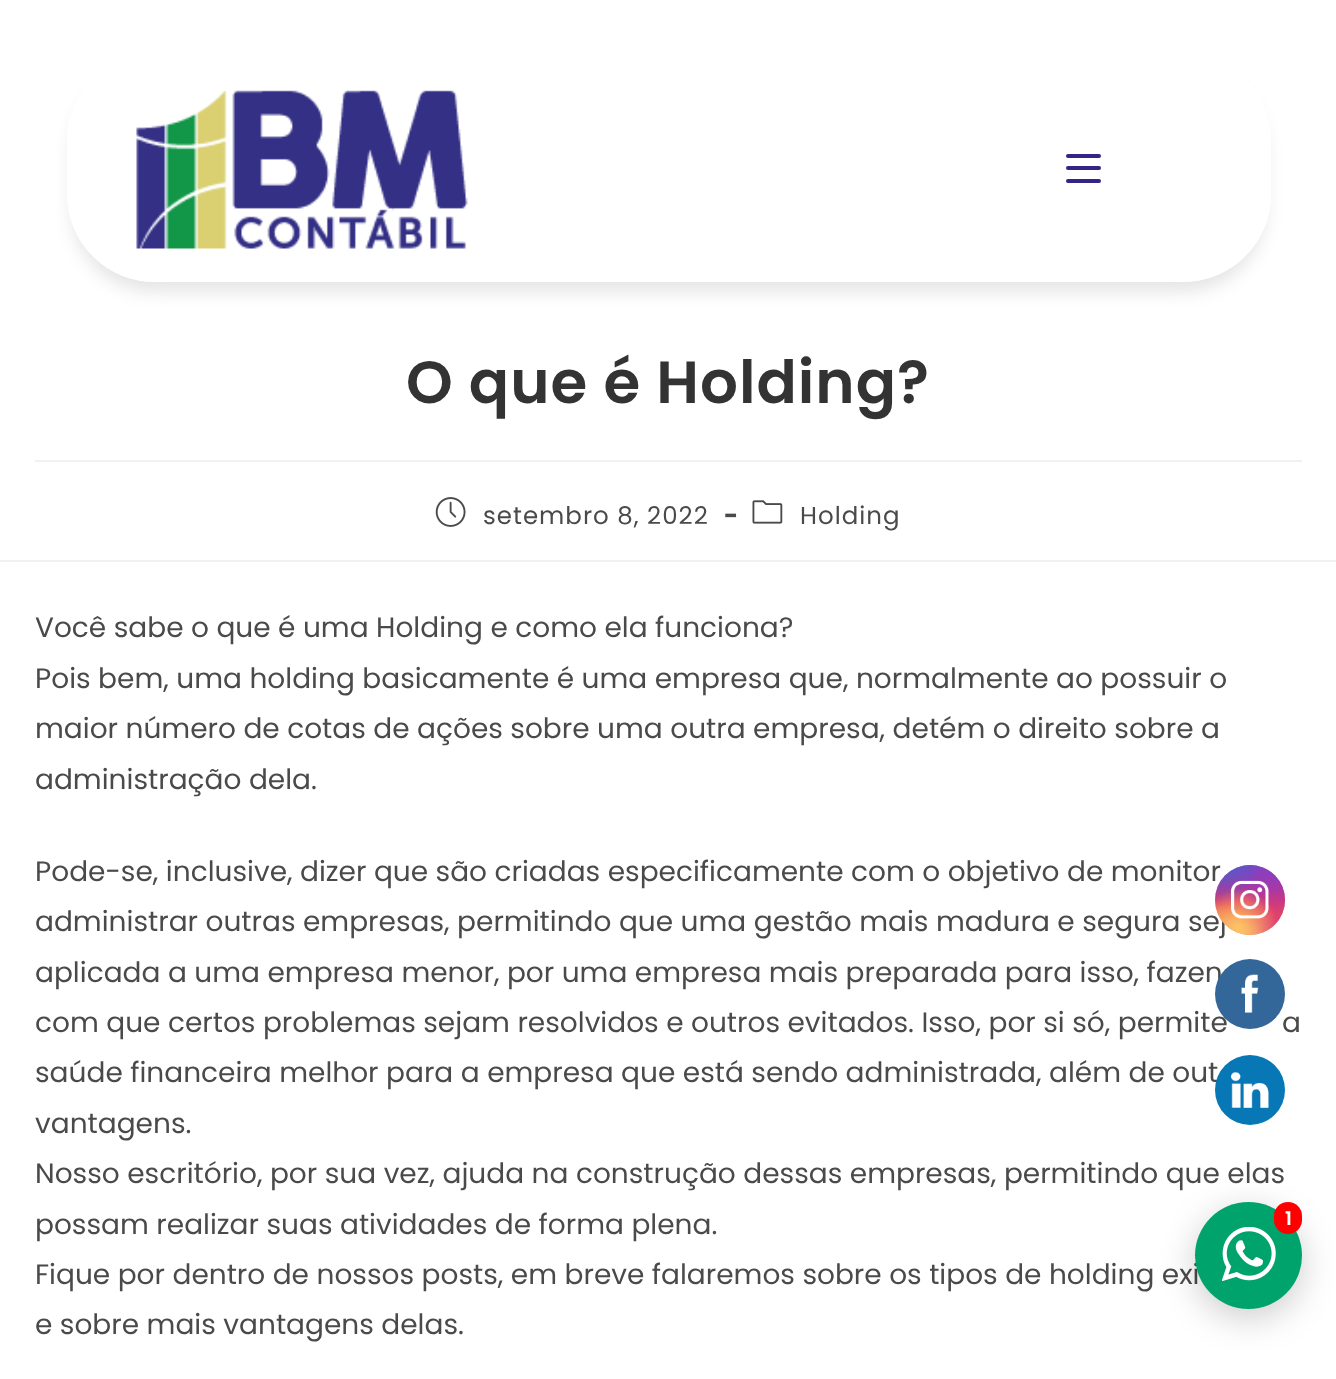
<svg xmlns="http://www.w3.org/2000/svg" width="1336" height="1379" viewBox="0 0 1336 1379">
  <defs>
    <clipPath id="clip1"><path d="M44 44H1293V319H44ZM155 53H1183C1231.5 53 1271 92.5 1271 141V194C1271 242.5 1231.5 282 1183 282H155C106.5 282 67 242.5 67 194V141C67 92.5 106.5 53 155 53Z" clip-rule="evenodd"/></clipPath>
    <filter id="blur1" x="-50%" y="-200%" width="200%" height="500%"><feGaussianBlur stdDeviation="9"/></filter>
    <linearGradient id="g1" gradientUnits="userSpaceOnUse" x1="1250" y1="865" x2="1250" y2="935"><stop offset="0" stop-color="#6559ca"/><stop offset="0.3" stop-color="#bc318f"/><stop offset="0.5" stop-color="#e33f5f"/><stop offset="0.7" stop-color="#f77638"/><stop offset="1" stop-color="#fec66d"/></linearGradient>
    <radialGradient id="g2" gradientUnits="userSpaceOnUse" cx="1285" cy="935" r="99"><stop offset="0" stop-color="#d9317a"/><stop offset="1" stop-color="#d9317a" stop-opacity="0"/></radialGradient>
    <radialGradient id="g3" gradientUnits="userSpaceOnUse" cx="0" cy="0" r="1" gradientTransform="matrix(59 0 0 119 1257 851)"><stop offset="0" stop-color="#893dc2"/><stop offset="0.5" stop-color="#893dc2" stop-opacity="0"/></radialGradient>
    <radialGradient id="g4" gradientUnits="userSpaceOnUse" cx="1285" cy="865" r="99"><stop offset="0" stop-color="#893dc2"/><stop offset="0.5" stop-color="#893dc2" stop-opacity="0"/></radialGradient>
    <radialGradient id="g5" gradientUnits="userSpaceOnUse" cx="0" cy="0" r="1" gradientTransform="matrix(79 0 0 148 1229 830)"><stop offset="0" stop-color="#5258cf"/><stop offset="0.5" stop-color="#5258cf" stop-opacity="0"/></radialGradient>
    <radialGradient id="g6" gradientUnits="userSpaceOnUse" cx="0" cy="0" r="1" gradientTransform="matrix(99 0 0 124 1215 847)"><stop offset="0" stop-color="#5258cf"/><stop offset="0.5" stop-color="#5258cf" stop-opacity="0"/></radialGradient>
    <radialGradient id="g7" gradientUnits="userSpaceOnUse" cx="1215" cy="963" r="120"><stop offset="0" stop-color="#fec564"/><stop offset="0.5" stop-color="#fec564" stop-opacity="0"/></radialGradient>
    <radialGradient id="g8" gradientUnits="userSpaceOnUse" cx="1239" cy="928" r="78"><stop offset="0" stop-color="#fec564"/><stop offset="0.5" stop-color="#fec564" stop-opacity="0"/></radialGradient>
    <filter id="blur2" x="-50%" y="-200%" width="200%" height="500%"><feGaussianBlur stdDeviation="17.5"/></filter>
  </defs>
  <rect width="100%" height="100%" fill="#ffffff"/>
  <g clip-path="url(#clip1)">
    <rect x="72" y="72" width="1193" height="219" rx="82" fill="#000000" fill-opacity="0.11" filter="url(#blur1)"/>
  </g>
  <rect x="67" y="53" width="1204" height="229" rx="88" fill="#ffffff" fill-opacity="0.99"/>
  <image x="136" y="90" width="332" height="159" href="img1.png"/>
  <rect x="1066" y="166" width="35" height="4" rx="2" fill="#332586"/>
  <rect x="1066" y="154" width="35" height="4" rx="2" fill="#332586"/>
  <rect x="1066" y="179" width="35" height="4" rx="2" fill="#332586"/>
  <rect x="35" y="460" width="1267" height="2" fill="#f1f1f1"/>
  <text x="406" y="403" font-family="Poppins" font-size="59.5" font-weight="600" letter-spacing="1" fill="#333333">O que é Holding?</text>
  <rect x="0" y="560" width="1336" height="2" fill="#f1f1f1"/>
  <image x="435" y="497" width="31" height="30" href="img2.png"/>
  <text x="483" y="524" font-family="Poppins" font-size="24.5" letter-spacing="1" fill="#4a4a4a">setembro 8, 2022</text>
  <text x="724" y="524" font-family="Poppins" font-size="24.5" font-weight="bold" letter-spacing="1" fill="#4a4a4a">-</text>
  <image x="752" y="500" width="31" height="24" href="img3.png"/>
  <text x="800" y="524" font-family="Poppins" font-size="24.5" letter-spacing="1" fill="#4a4a4a">Holding</text>
  <text x="35" y="637" font-family="Poppins" font-size="28" fill="#4a4a4a">Você sabe o que é uma Holding e como ela funciona?</text>
  <text x="35" y="688" font-family="Poppins" font-size="28" fill="#4a4a4a">Pois bem, uma holding basicamente é uma empresa que, normalmente ao possuir o</text>
  <text x="35" y="738" font-family="Poppins" font-size="28" fill="#4a4a4a">maior número de cotas de ações sobre uma outra empresa, detém o direito sobre a</text>
  <text x="35" y="789" font-family="Poppins" font-size="28" fill="#4a4a4a">administração dela.</text>
  <text x="35" y="881" font-family="Poppins" font-size="28" fill="#4a4a4a">Pode-se, inclusive, dizer que são criadas especificamente com o objetivo de monitor</text>
  <text x="35" y="931" font-family="Poppins" font-size="28" fill="#4a4a4a">administrar outras empresas, permitindo que uma gestão mais madura e segura sej</text>
  <text x="35" y="982" font-family="Poppins" font-size="28" fill="#4a4a4a">aplicada a uma empresa menor, por uma empresa mais preparada para isso, fazen</text>
  <text x="35" y="1032" font-family="Poppins" font-size="28" fill="#4a4a4a">com que certos problemas sejam resolvidos e outros evitados. Isso, por si só, permite</text>
  <text x="1282" y="1032" font-family="Poppins" font-size="28" fill="#4a4a4a">a</text>
  <text x="35" y="1082" font-family="Poppins" font-size="28" fill="#4a4a4a">saúde financeira melhor para a empresa que está sendo administrada, além de out</text>
  <text x="35" y="1133" font-family="Poppins" font-size="28" fill="#4a4a4a">vantagens.</text>
  <text x="35" y="1183" font-family="Poppins" font-size="28" fill="#4a4a4a">Nosso escritório, por sua vez, ajuda na construção dessas empresas, permitindo que elas</text>
  <text x="35" y="1234" font-family="Poppins" font-size="28" fill="#4a4a4a">possam realizar suas atividades de forma plena.</text>
  <text x="35" y="1284" font-family="Poppins" font-size="28" fill="#4a4a4a">Fique por dentro de nossos posts, em breve falaremos sobre os tipos de holding exi</text>
  <text x="35" y="1334" font-family="Poppins" font-size="28" fill="#4a4a4a">e sobre mais vantagens delas.</text>
  <circle cx="1250" cy="900" r="35" fill="url(#g1)"/>
  <circle cx="1250" cy="900" r="35" fill="url(#g2)"/>
  <circle cx="1250" cy="900" r="35" fill="url(#g3)"/>
  <circle cx="1250" cy="900" r="35" fill="url(#g4)"/>
  <circle cx="1250" cy="900" r="35" fill="url(#g5)"/>
  <circle cx="1250" cy="900" r="35" fill="url(#g6)"/>
  <circle cx="1250" cy="900" r="35" fill="url(#g7)"/>
  <circle cx="1250" cy="900" r="35" fill="url(#g8)"/>
  <image x="1231" y="880" width="38" height="39" href="img4.png"/>
  <circle cx="1250" cy="994" r="35" fill="#336699"/>
  <image x="1241" y="974" width="18" height="39" href="img5.png"/>
  <circle cx="1250" cy="1090" r="35" fill="#0877b5"/>
  <image x="1231" y="1071" width="38" height="37" href="img6.png"/>
  <rect x="1195" y="1211" width="107" height="107" rx="53.5" fill="#000000" fill-opacity="0.2" filter="url(#blur2)"/>
  <circle cx="1248.5" cy="1255.5" r="53.5" fill="#01a36d"/>
  <image x="1222" y="1227" width="54" height="54" href="img7.png"/>
  <rect x="1274" y="1202" width="28" height="32" rx="14" fill="#ff0000"/>
  <text x="1285" y="1225" font-family="Poppins" font-size="19" font-weight="600" fill="#ffffff">1</text>
</svg>
